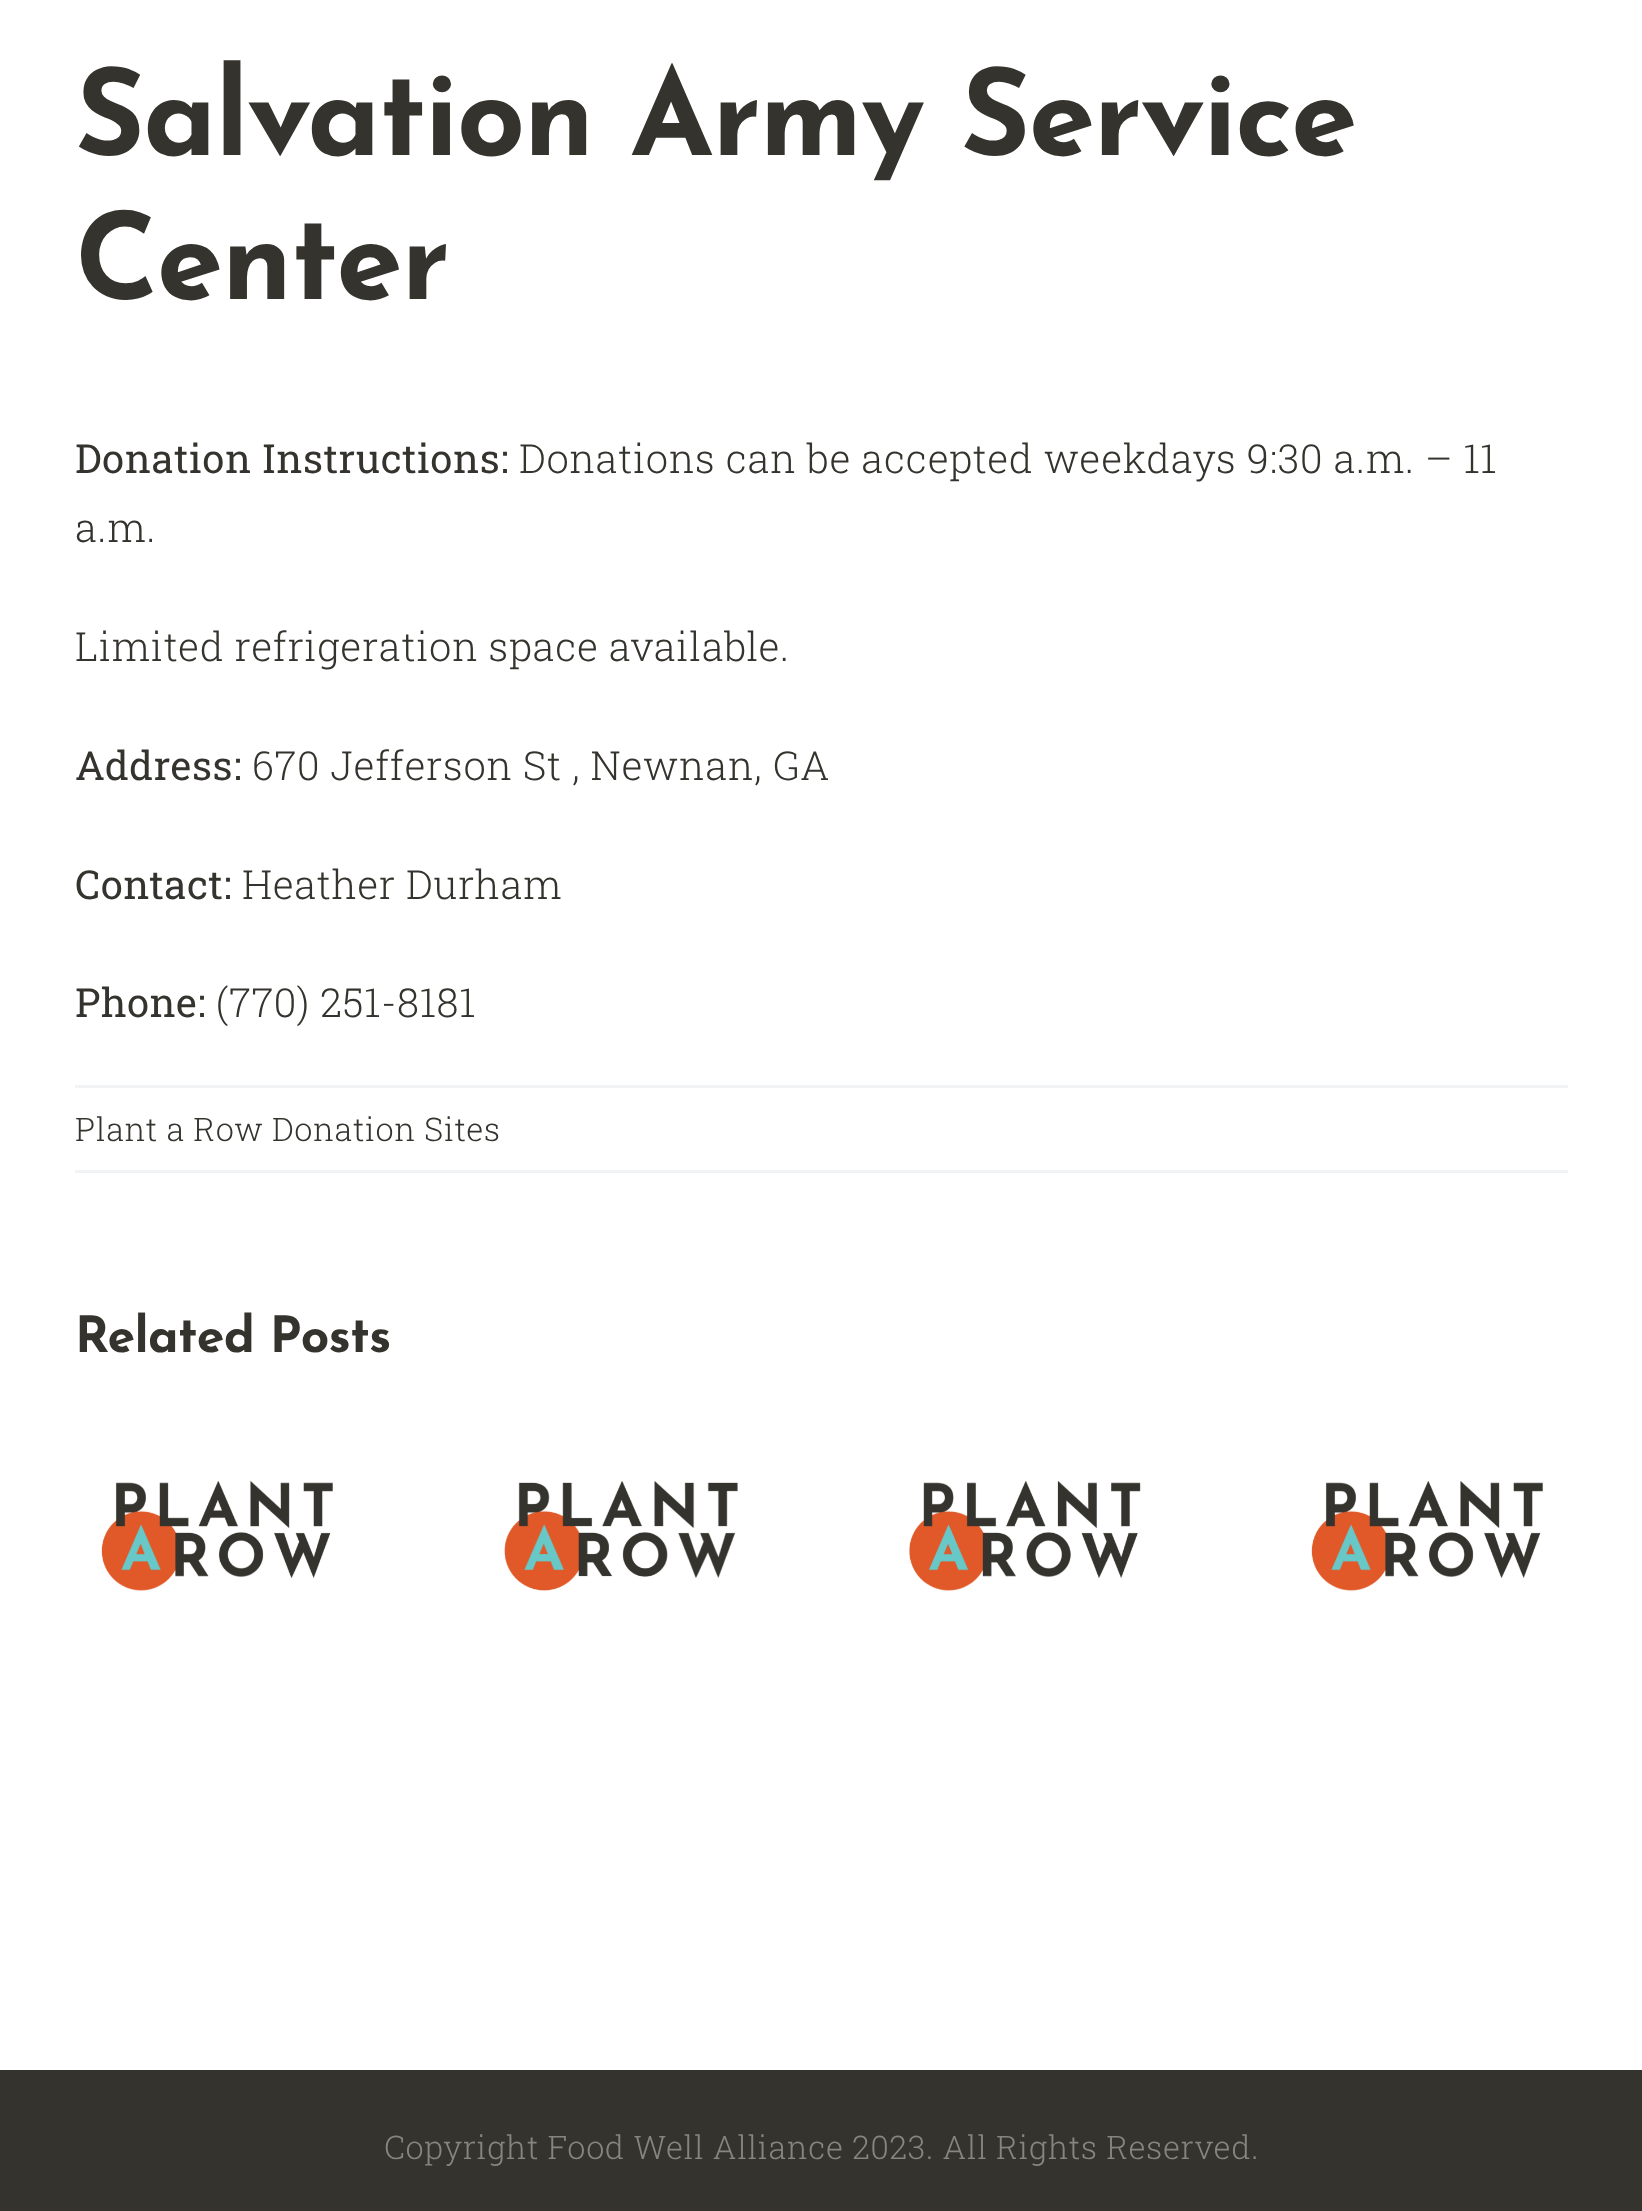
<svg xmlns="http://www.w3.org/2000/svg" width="1642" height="2211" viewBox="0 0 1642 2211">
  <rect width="100%" height="100%" fill="#ffffff"/>
  <text x="75" y="155" font-family="Josefin Sans" font-size="120" font-weight="bold" letter-spacing="-1.8" fill="#35332d">Salvation Army Service</text>
  <text x="75" y="299" font-family="Josefin Sans" font-size="120" font-weight="bold" letter-spacing="-1.8" fill="#35332d">Center</text>
  <text x="75" y="473" font-family="Roboto Slab" font-size="40" letter-spacing="0.6" fill="#35332d">Donation Instructions:</text>
  <text x="519" y="473" font-family="Roboto Slab" font-size="40" font-weight="300" letter-spacing="0.6" fill="#35332d">Donations can be accepted weekdays 9:30 a.m. – 11</text>
  <text x="75" y="542" font-family="Roboto Slab" font-size="40" font-weight="300" letter-spacing="0.6" fill="#35332d">a.m.</text>
  <text x="75" y="661" font-family="Roboto Slab" font-size="40" font-weight="300" letter-spacing="0.6" fill="#35332d">Limited refrigeration space available.</text>
  <text x="75" y="780" font-family="Roboto Slab" font-size="40" letter-spacing="0.6" fill="#35332d">Address:</text>
  <text x="252" y="780" font-family="Roboto Slab" font-size="40" font-weight="300" letter-spacing="0.6" fill="#35332d">670 Jefferson St , Newnan, GA</text>
  <text x="75" y="899" font-family="Roboto Slab" font-size="40" letter-spacing="0.6" fill="#35332d">Contact:</text>
  <text x="242" y="899" font-family="Roboto Slab" font-size="40" font-weight="300" letter-spacing="0.6" fill="#35332d">Heather Durham</text>
  <text x="75" y="1017" font-family="Roboto Slab" font-size="40" letter-spacing="0.6" fill="#35332d">Phone:</text>
  <text x="216" y="1017" font-family="Roboto Slab" font-size="40" font-weight="300" letter-spacing="0.6" fill="#35332d">(770) 251-8181</text>
  <rect x="75" y="1085" width="1493" height="3" fill="#f2f3f5"/>
  <rect x="75" y="1170" width="1493" height="3" fill="#f2f3f5"/>
  <text x="75" y="1141" font-family="Roboto Slab" font-size="32.5" font-weight="300" letter-spacing="0.6" fill="#35332d">Plant a Row Donation Sites</text>
  <text x="75" y="1352" font-family="Josefin Sans" font-size="50" font-weight="bold" letter-spacing="-0.75" fill="#35332d">Related Posts</text>
  <image x="101" y="1480" width="232" height="111" href="img1.png"/>
  <image x="504" y="1481" width="234" height="110" href="img2.png"/>
  <image x="909" y="1480" width="232" height="111" href="img3.png"/>
  <image x="1311" y="1480" width="232" height="111" href="img1.png"/>
  <rect x="0" y="2070" width="1642" height="141" fill="#35332d"/>
  <text x="384" y="2159" font-family="Roboto Slab" font-size="32.5" font-weight="300" letter-spacing="0.6" fill="#868581">Copyright Food Well Alliance 2023. All Rights Reserved.</text>
</svg>
